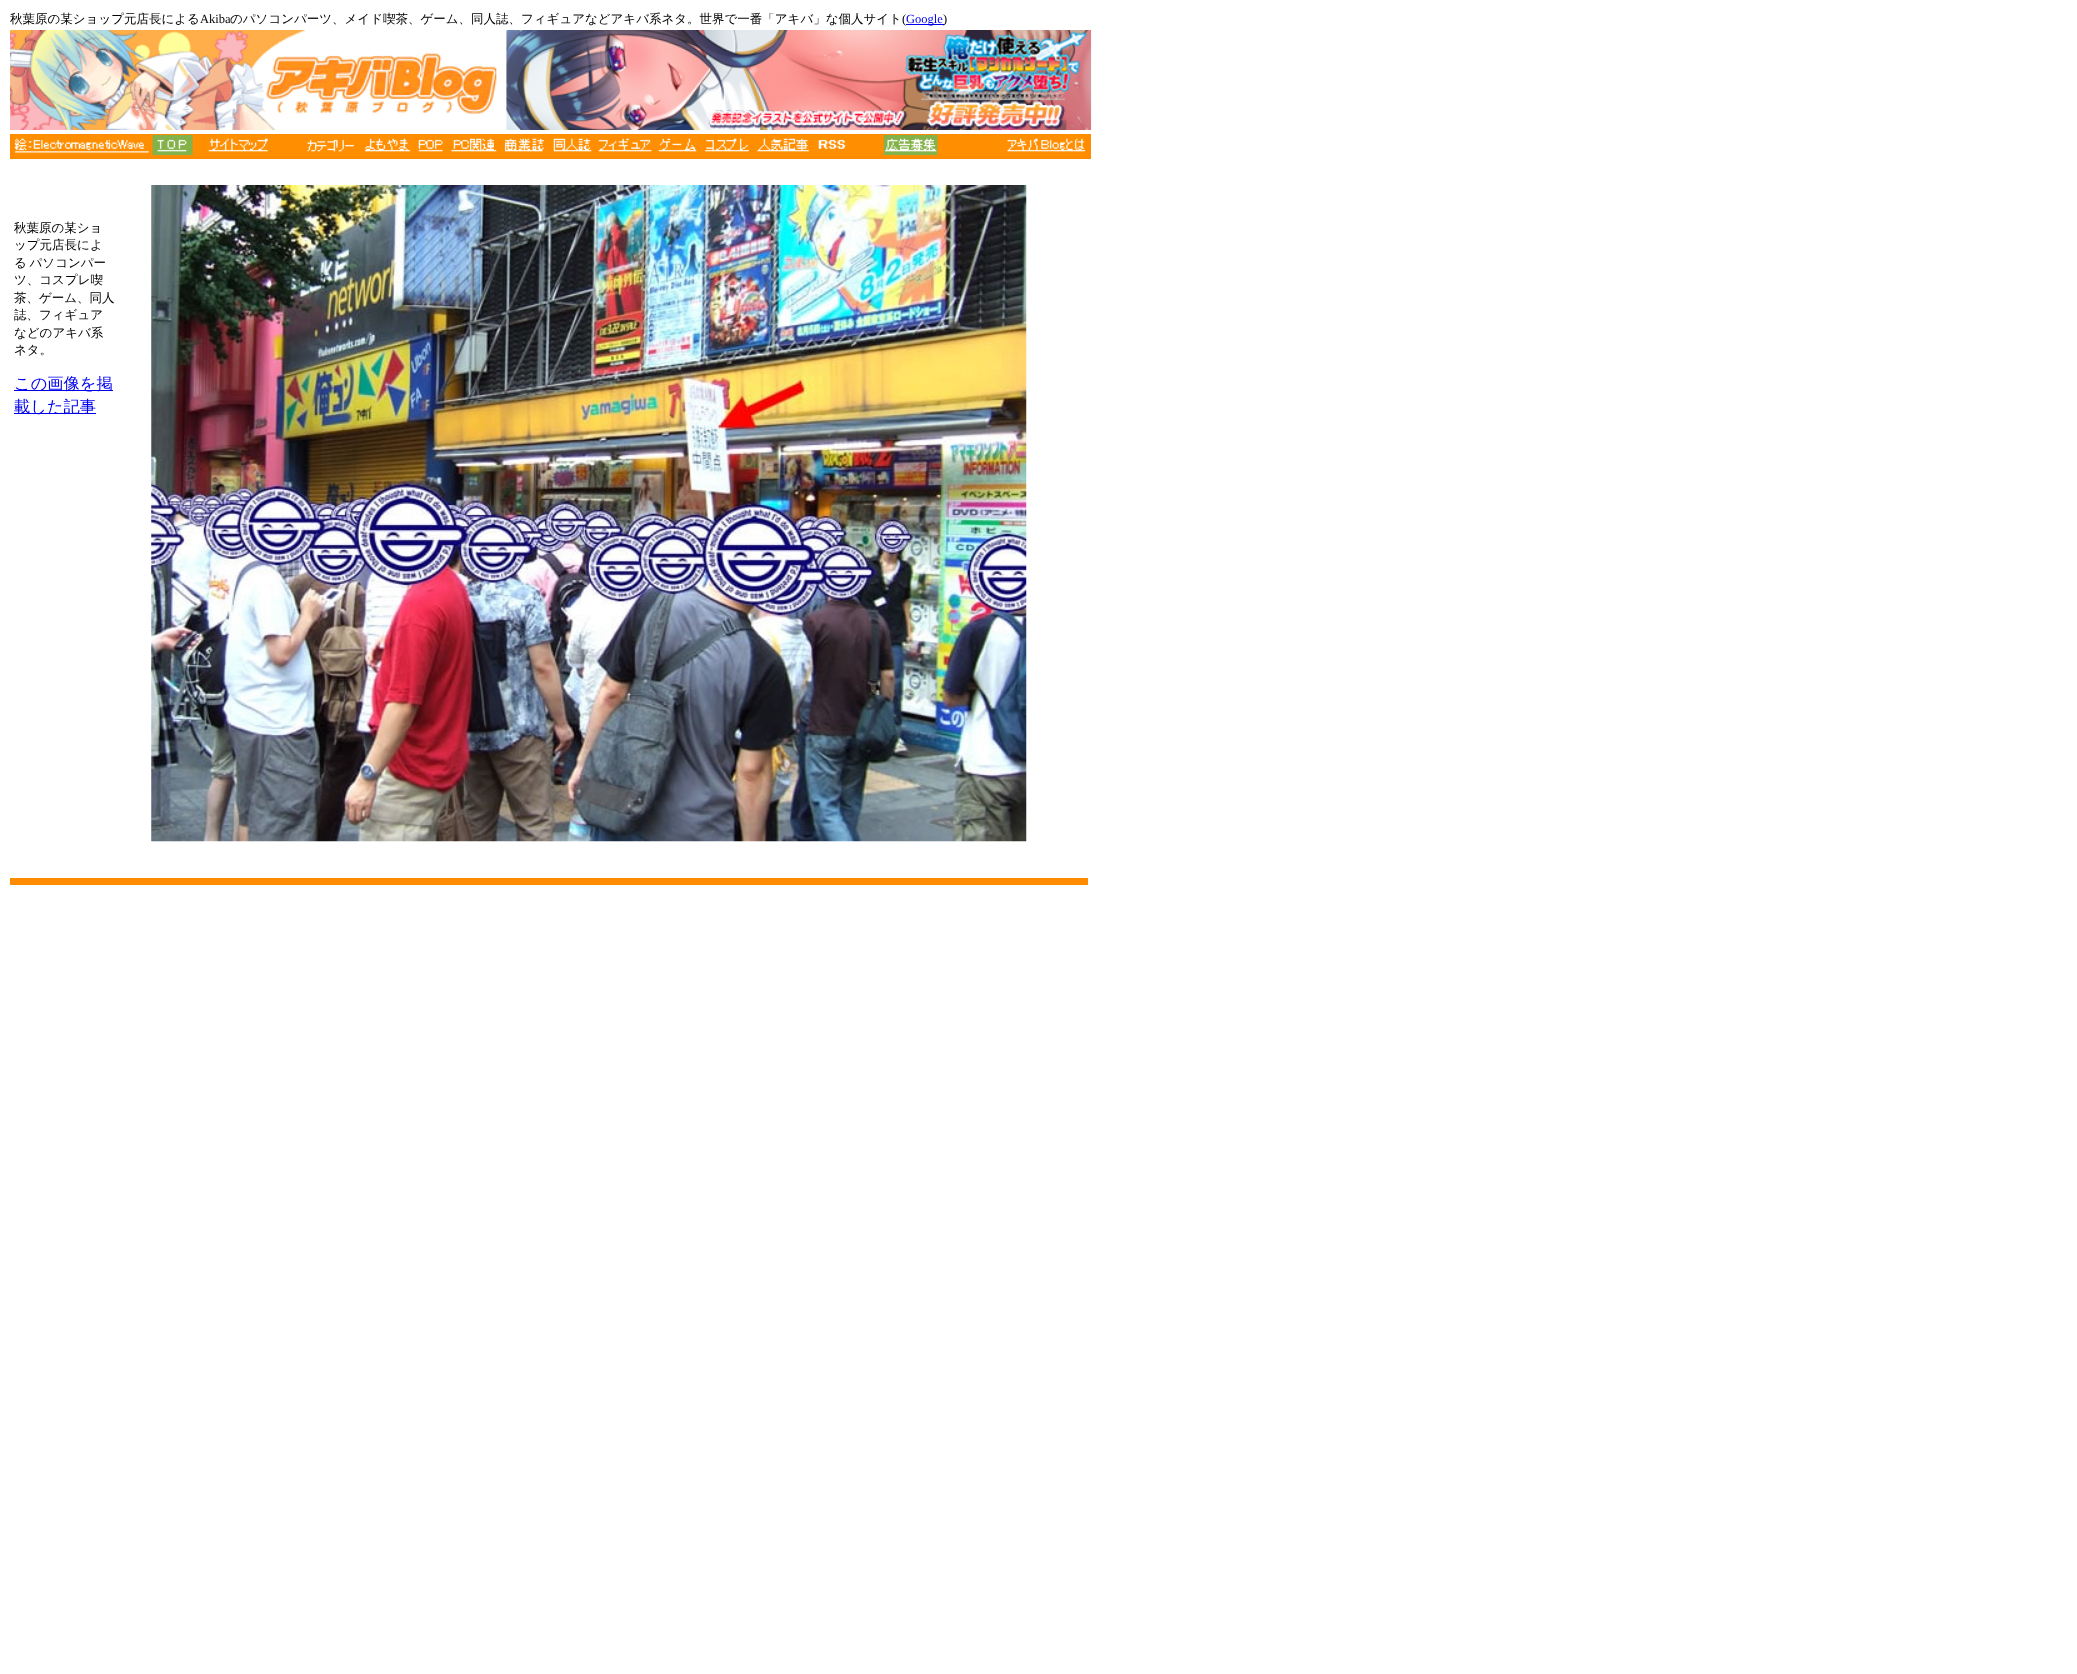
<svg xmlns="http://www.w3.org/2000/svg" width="2077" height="1674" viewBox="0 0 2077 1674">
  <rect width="100%" height="100%" fill="#ffffff"/>
  <text x="10" y="23" font-family="WenQuanYi Zen Hei" font-size="12.5" font-weight="500" fill="#000000">秋葉原の某ショップ元店長による</text>
  <text x="200" y="23" font-family="Liberation Serif" font-size="12.5" fill="#000000">Akiba</text>
  <text x="230" y="23" font-family="WenQuanYi Zen Hei" font-size="12.5" font-weight="500" fill="#000000">のパソコンパーツ、メイド喫茶、ゲーム、同人誌、フィギュアなどアキバ系ネタ。世界で一番「アキバ」な個人サイト</text>
  <text x="902" y="23" font-family="Liberation Serif" font-size="12.5" fill="#000000">(</text>
  <rect x="906" y="24" width="38" height="1" fill="#0000ee"/>
  <text x="906" y="23" font-family="Liberation Serif" font-size="12.5" fill="#0000ee">Google</text>
  <text x="943" y="23" font-family="Liberation Serif" font-size="12.5" fill="#000000">)</text>
  <image x="10" y="30" width="487" height="100" href="img1.png"/>
  <image x="506" y="30" width="586" height="100" href="img2.png"/>
  <rect x="10" y="134" width="1081" height="25" fill="#ff8c00"/>
  <image x="14" y="135" width="1072" height="21" href="img3.png"/>
  <text x="14" y="232" font-family="WenQuanYi Zen Hei" font-size="12.5" font-weight="500" fill="#000000">秋葉原の某ショ</text>
  <text x="14" y="249" font-family="WenQuanYi Zen Hei" font-size="12.5" font-weight="500" fill="#000000">ップ元店長によ</text>
  <text x="14" y="267" word-spacing="-1" font-family="WenQuanYi Zen Hei" font-size="12.5" font-weight="500" fill="#000000">る パソコンパー</text>
  <text x="14" y="284" font-family="WenQuanYi Zen Hei" font-size="12.5" font-weight="500" fill="#000000">ツ、コスプレ喫</text>
  <text x="14" y="302" font-family="WenQuanYi Zen Hei" font-size="12.5" font-weight="500" fill="#000000">茶、ゲーム、同人</text>
  <text x="14" y="319" font-family="WenQuanYi Zen Hei" font-size="12.5" font-weight="500" fill="#000000">誌、フィギュア</text>
  <text x="14" y="337" font-family="WenQuanYi Zen Hei" font-size="12.5" font-weight="500" fill="#000000">などのアキバ系</text>
  <text x="14" y="354" font-family="WenQuanYi Zen Hei" font-size="12.5" font-weight="500" fill="#000000">ネタ。</text>
  <rect x="14" y="390" width="99" height="1" fill="#0000ee"/>
  <text x="14" y="389" font-family="WenQuanYi Zen Hei" font-size="16.25" font-weight="500" fill="#0000ee">この画像を掲</text>
  <rect x="14" y="413" width="82" height="1" fill="#0000ee"/>
  <text x="14" y="412" font-family="WenQuanYi Zen Hei" font-size="16.25" font-weight="500" fill="#0000ee">載した記事</text>
  <image x="151" y="185" width="876" height="657" href="img4.png"/>
  <rect x="10" y="878" width="1078" height="7" fill="#ff8c00"/>
</svg>
